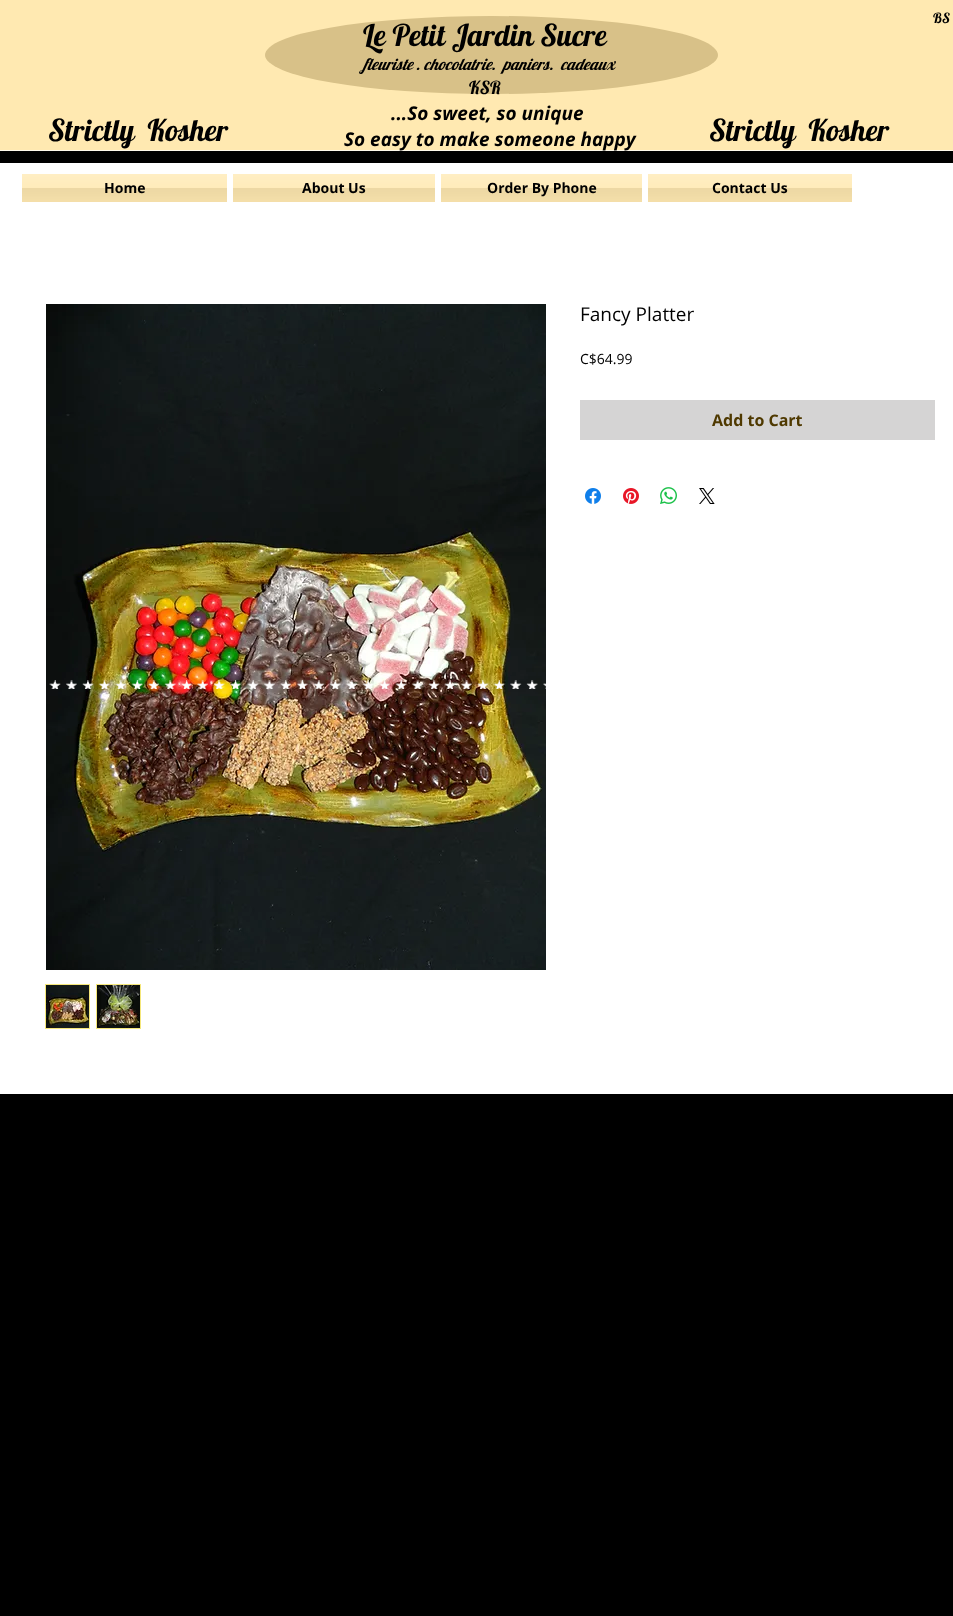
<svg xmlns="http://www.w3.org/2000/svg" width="953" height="1616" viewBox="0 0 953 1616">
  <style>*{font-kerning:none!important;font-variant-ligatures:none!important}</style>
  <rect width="100%" height="100%" fill="#000000"/>
  <rect x="0" y="0" width="953" height="150" fill="#ffe9b1"/>
  <rect x="0" y="150" width="953" height="1" fill="#fffaec"/>
  <text x="933" y="23" font-family="Lobster" font-size="14" fill="#000000">BS</text>
  <ellipse cx="491.5" cy="55" rx="226.5" ry="39" fill="#d8c188"/>
  <text x="363" y="46" font-family="Lobster" font-size="30" fill="#000000">Le Petit Jardin Sucre</text>
  <text x="363" y="70" font-family="Lobster" font-size="16" font-style="italic" fill="#000000" xml:space="preserve">fleuriste . chocolatrie.  paniers.  cadeaux</text>
  <text x="469" y="94" font-family="Lobster" font-size="18" fill="#000000">KSR</text>
  <text x="48" y="141" font-family="Lobster" font-size="30" fill="#000000" xml:space="preserve">Strictly  Kosher</text>
  <text x="391" y="120" font-family="Open Sans" font-size="19" font-weight="bold" font-style="italic" fill="#000000">...So sweet, so unique</text>
  <text x="344" y="146" font-family="Open Sans" font-size="19" font-weight="bold" font-style="italic" fill="#000000">So easy to make someone happy</text>
  <text x="709" y="141" font-family="Lobster" font-size="30" fill="#000000" xml:space="preserve">Strictly  Kosher</text>
  <rect x="0" y="163" width="953" height="931" fill="#ffffff"/>
  <rect x="22" y="174" width="205" height="28" fill="#ffe9b1"/>
  <image x="22" y="174" width="205" height="28" href="img1.png"/>
  <text x="104" y="193" font-family="Open Sans" font-size="14" font-weight="bold" fill="#000000">Home</text>
  <rect x="233" y="174" width="202" height="28" fill="#ffe9b1"/>
  <image x="233" y="174" width="202" height="28" href="img2.png"/>
  <text x="302" y="193" font-family="Open Sans" font-size="14" font-weight="bold" fill="#000000">About Us</text>
  <rect x="441" y="174" width="201" height="28" fill="#ffe9b1"/>
  <image x="441" y="174" width="201" height="28" href="img3.png"/>
  <text x="487" y="193" font-family="Open Sans" font-size="14" font-weight="bold" fill="#000000">Order By Phone</text>
  <rect x="648" y="174" width="204" height="28" fill="#ffe9b1"/>
  <image x="648" y="174" width="204" height="28" href="img4.png"/>
  <text x="712" y="193" font-family="Open Sans" font-size="14" font-weight="bold" fill="#000000">Contact Us</text>
  <image x="46" y="304" width="500" height="666" href="img6.png"/>
  <image x="49" y="680" width="497" height="9" href="img5.png"/>
  <rect x="45" y="984" width="45" height="45" fill="#f5e77a"/>
  <image x="46" y="985" width="43" height="43" href="img7.png"/>
  <rect x="96" y="984" width="45" height="45" fill="#f5e77a"/>
  <image x="97" y="985" width="43" height="43" href="img8.png"/>
  <text x="580" y="321" font-family="Open Sans" font-size="19" fill="#000000">Fancy Platter</text>
  <text x="580" y="364" font-family="Open Sans" font-size="14" fill="#000000">C$64.99</text>
  <rect x="580" y="400" width="355" height="40" fill="#d5d4d4"/>
  <text x="712" y="426" font-family="Open Sans" font-size="16" font-weight="bold" fill="#4f3900">Add to Cart</text>
  <image x="585" y="488" width="16" height="16" href="img9.png"/>
  <image x="623" y="488" width="16" height="16" href="img10.png"/>
  <image x="660" y="487" width="17" height="17" href="img11.png"/>
  <image x="699" y="488" width="16" height="16" href="img12.png"/>
</svg>
